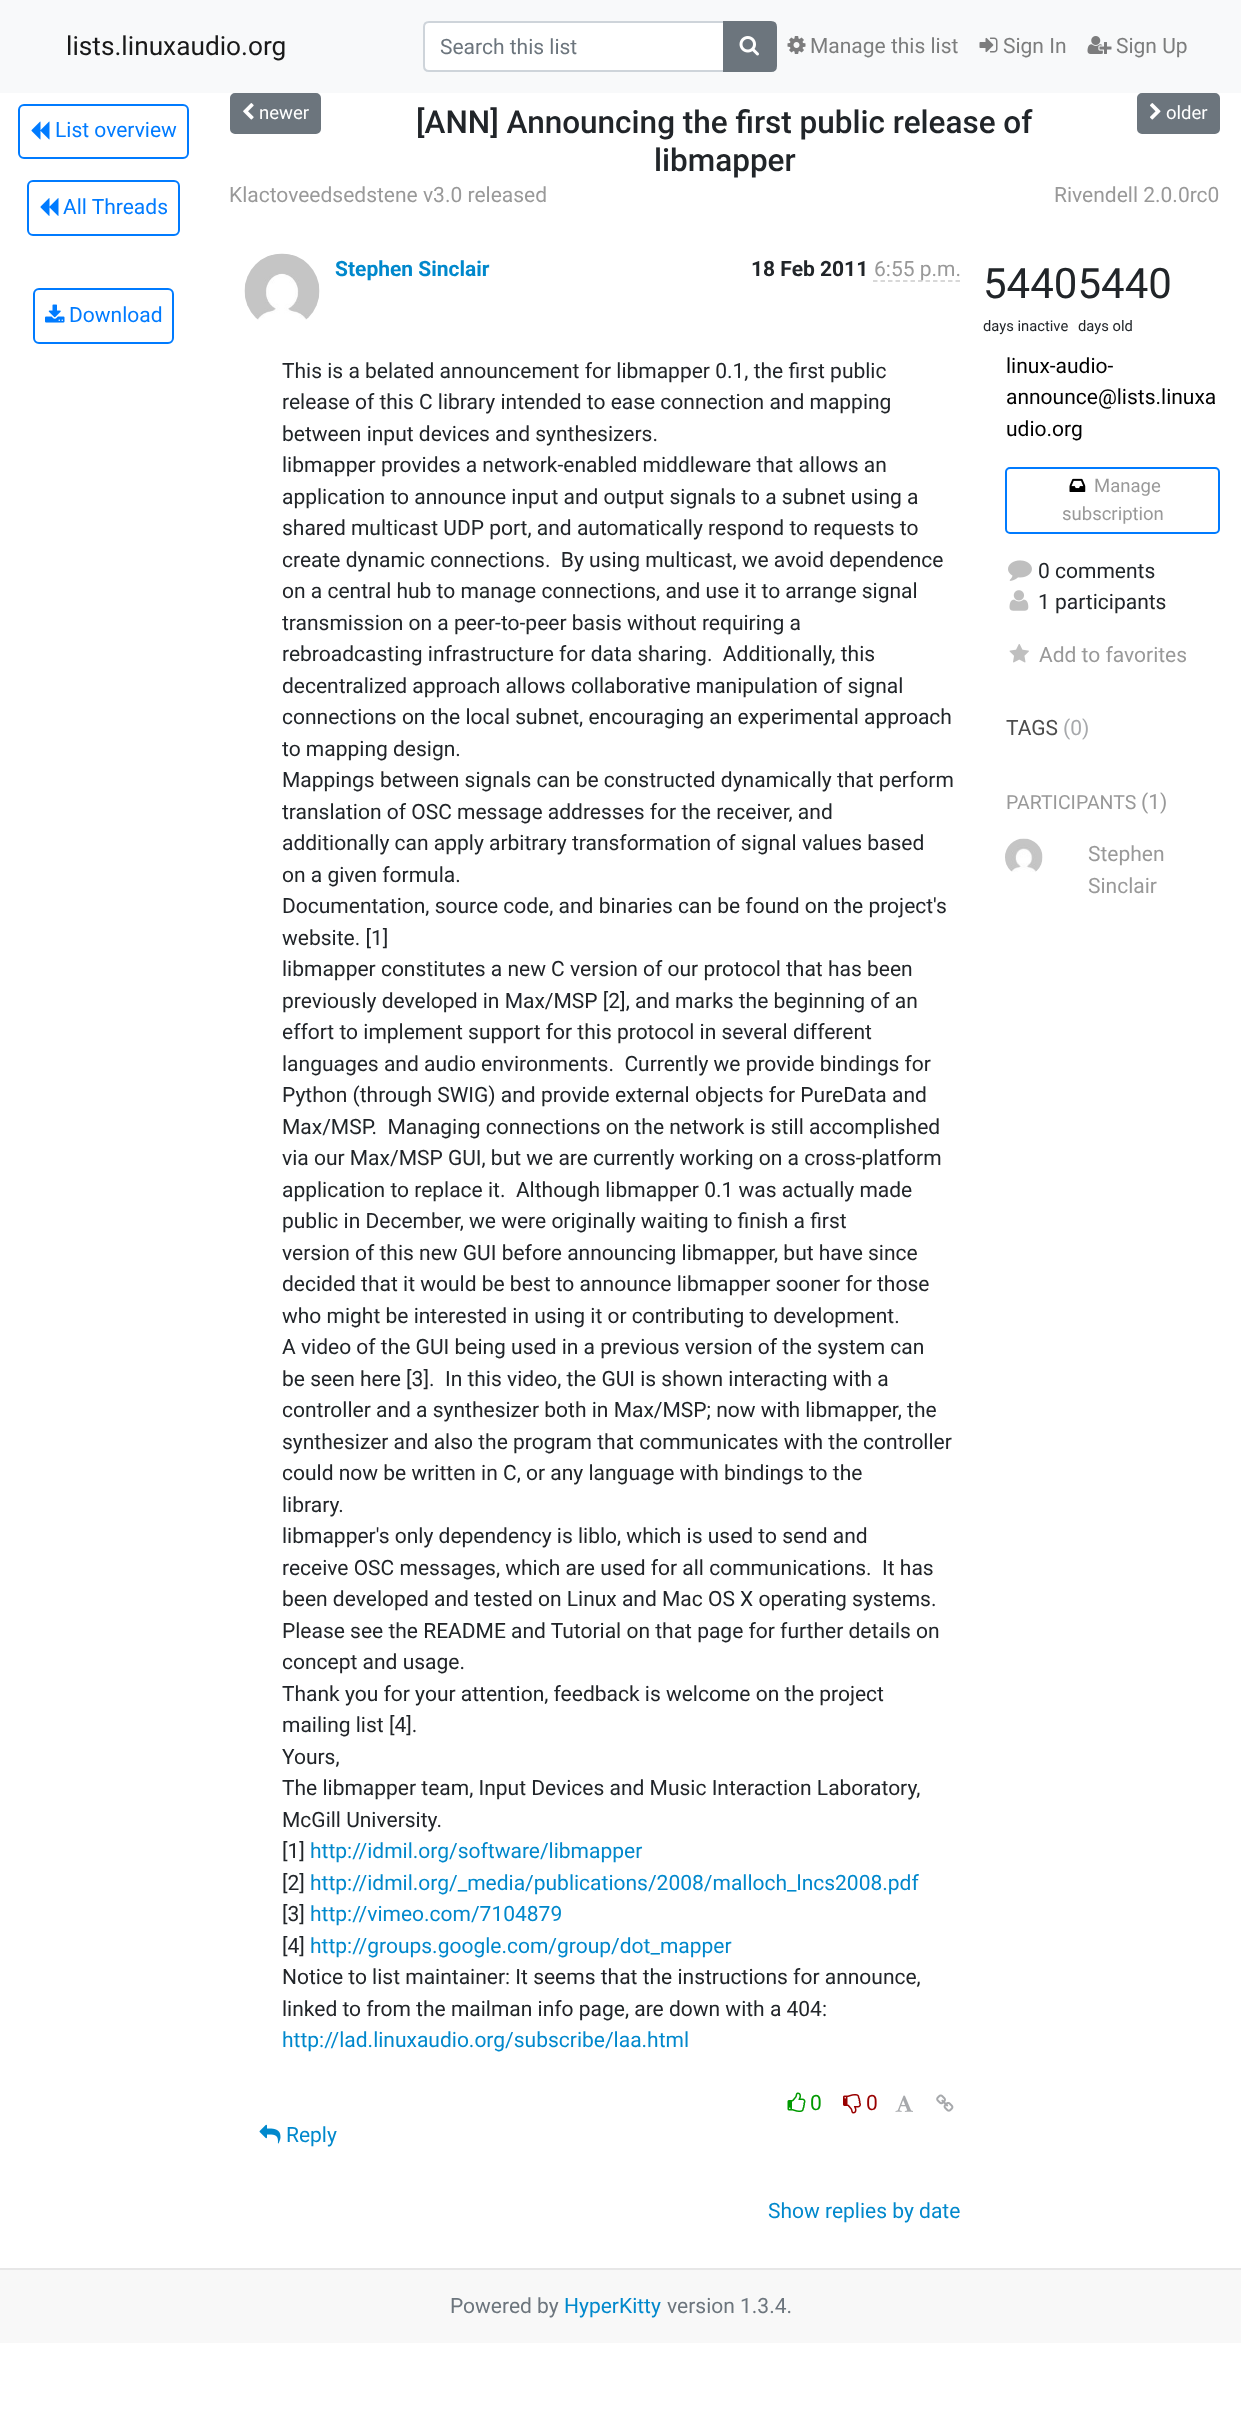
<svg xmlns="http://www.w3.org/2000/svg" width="1241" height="2429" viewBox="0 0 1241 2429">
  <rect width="100%" height="100%" fill="#ffffff"/>
  <rect x="0" y="0" width="1241" height="93" fill="#f8f9fa"/>
  <text x="66" y="55" font-family="Roboto" font-size="26.25" fill="#191919">lists.linuxaudio.org</text>
  <path d="M429 22H724V71H429C426 71 424 69 424 66V27C424 24 426 22 429 22Z" fill="#ffffff" stroke="#ced4da" stroke-width="2"/>
  <text x="440" y="54" font-family="Roboto" font-size="21" fill="#6c757d">Search this list</text>
  <path d="M724 22H771C774 22 776 24 776 27V66C776 69 774 71 771 71H724Z" fill="#6c757d" stroke="#6c757d" stroke-width="2"/>
  <image x="739" y="36" width="20" height="20" href="img1.png"/>
  <image x="787" y="36" width="19" height="18" href="img2.png"/>
  <text x="810" y="53" font-family="Roboto" font-size="21" fill="#7c7d7d">Manage this list</text>
  <image x="979" y="37" width="19" height="16" href="img3.png"/>
  <text x="1003" y="53" font-family="Roboto" font-size="21" fill="#7c7d7d">Sign In</text>
  <image x="1087" y="36" width="25" height="18" href="img4.png"/>
  <text x="1116" y="53" font-family="Roboto" font-size="21" fill="#7c7d7d">Sign Up</text>
  <rect x="19" y="105" width="169" height="53" rx="5" fill="none" stroke="#007bff" stroke-width="2"/>
  <image x="31" y="121" width="19" height="19" href="img5.png"/>
  <text x="55" y="137" font-family="Roboto" font-size="21" fill="#007bff">List overview</text>
  <rect x="28" y="181" width="151" height="54" rx="5" fill="none" stroke="#007bff" stroke-width="2"/>
  <image x="40" y="198" width="19" height="18" href="img6.png"/>
  <text x="63" y="214" font-family="Roboto" font-size="21" fill="#007bff">All Threads</text>
  <rect x="34" y="289" width="139" height="54" rx="5" fill="none" stroke="#007bff" stroke-width="2"/>
  <image x="45" y="304" width="20" height="19" href="img7.png"/>
  <text x="69" y="322" font-family="Roboto" font-size="21" fill="#007bff">Download</text>
  <rect x="231" y="94" width="89" height="39" rx="4" fill="#6c757d" stroke="#6c757d" stroke-width="2"/>
  <image x="243" y="103" width="11" height="17" href="img8.png"/>
  <text x="259" y="119" font-family="Roboto" font-size="18.5" fill="#ffffff">newer</text>
  <text x="416" y="133" font-family="Roboto" font-size="31.5" font-weight="500" fill="#212529">[ANN] Announcing the first public release of</text>
  <text x="654" y="171" font-family="Roboto" font-size="31.5" font-weight="500" fill="#212529">libmapper</text>
  <rect x="1138" y="94" width="81" height="39" rx="4" fill="#6c757d" stroke="#6c757d" stroke-width="2"/>
  <image x="1150" y="103" width="11" height="17" href="img9.png"/>
  <text x="1166" y="119" font-family="Roboto" font-size="18.5" fill="#ffffff">older</text>
  <text x="229" y="202" font-family="Roboto" font-size="21" fill="#999999">Klactoveedsedstene v3.0 released</text>
  <text x="1054" y="202" font-family="Roboto" font-size="21" fill="#999999">Rivendell 2.0.0rc0</text>
  <image x="244" y="253" width="76" height="67" href="img10.png"/>
  <text x="335" y="276" font-family="Roboto" font-size="21" font-weight="bold" fill="#0088cc">Stephen Sinclair</text>
  <text x="751" y="276" font-family="Roboto" font-size="21" font-weight="bold" fill="#212529">18 Feb 2011</text>
  <path d="M873 281H960" fill="none" stroke="#cccccc" stroke-width="1.5" stroke-dasharray="4.5 3"/>
  <text x="874" y="276" font-family="Roboto" font-size="21" fill="#999999">6:55 p.m.</text>
  <text x="282" y="378" font-family="Roboto" font-size="21" fill="#212529">This is a belated announcement for libmapper 0.1, the first public</text>
  <text x="282" y="409" font-family="Roboto" font-size="21" fill="#212529">release of this C library intended to ease connection and mapping</text>
  <text x="282" y="441" font-family="Roboto" font-size="21" fill="#212529">between input devices and synthesizers.</text>
  <text x="282" y="472" font-family="Roboto" font-size="21" fill="#212529">libmapper provides a network-enabled middleware that allows an</text>
  <text x="282" y="504" font-family="Roboto" font-size="21" fill="#212529">application to announce input and output signals to a subnet using a</text>
  <text x="282" y="535" font-family="Roboto" font-size="21" fill="#212529">shared multicast UDP port, and automatically respond to requests to</text>
  <text x="282" y="567" font-family="Roboto" font-size="21" fill="#212529" xml:space="preserve">create dynamic connections.  By using multicast, we avoid dependence</text>
  <text x="282" y="598" font-family="Roboto" font-size="21" fill="#212529">on a central hub to manage connections, and use it to arrange signal</text>
  <text x="282" y="630" font-family="Roboto" font-size="21" fill="#212529">transmission on a peer-to-peer basis without requiring a</text>
  <text x="282" y="661" font-family="Roboto" font-size="21" fill="#212529" xml:space="preserve">rebroadcasting infrastructure for data sharing.  Additionally, this</text>
  <text x="282" y="693" font-family="Roboto" font-size="21" fill="#212529">decentralized approach allows collaborative manipulation of signal</text>
  <text x="282" y="724" font-family="Roboto" font-size="21" fill="#212529">connections on the local subnet, encouraging an experimental approach</text>
  <text x="282" y="756" font-family="Roboto" font-size="21" fill="#212529">to mapping design.</text>
  <text x="282" y="787" font-family="Roboto" font-size="21" fill="#212529">Mappings between signals can be constructed dynamically that perform</text>
  <text x="282" y="819" font-family="Roboto" font-size="21" fill="#212529">translation of OSC message addresses for the receiver, and</text>
  <text x="282" y="850" font-family="Roboto" font-size="21" fill="#212529">additionally can apply arbitrary transformation of signal values based</text>
  <text x="282" y="882" font-family="Roboto" font-size="21" fill="#212529">on a given formula.</text>
  <text x="282" y="913" font-family="Roboto" font-size="21" fill="#212529">Documentation, source code, and binaries can be found on the project's</text>
  <text x="282" y="945" font-family="Roboto" font-size="21" fill="#212529">website. [1]</text>
  <text x="282" y="976" font-family="Roboto" font-size="21" fill="#212529">libmapper constitutes a new C version of our protocol that has been</text>
  <text x="282" y="1008" font-family="Roboto" font-size="21" fill="#212529">previously developed in Max/MSP [2], and marks the beginning of an</text>
  <text x="282" y="1039" font-family="Roboto" font-size="21" fill="#212529">effort to implement support for this protocol in several different</text>
  <text x="282" y="1071" font-family="Roboto" font-size="21" fill="#212529" xml:space="preserve">languages and audio environments.  Currently we provide bindings for</text>
  <text x="282" y="1102" font-family="Roboto" font-size="21" fill="#212529">Python (through SWIG) and provide external objects for PureData and</text>
  <text x="282" y="1134" font-family="Roboto" font-size="21" fill="#212529" xml:space="preserve">Max/MSP.  Managing connections on the network is still accomplished</text>
  <text x="282" y="1165" font-family="Roboto" font-size="21" fill="#212529">via our Max/MSP GUI, but we are currently working on a cross-platform</text>
  <text x="282" y="1197" font-family="Roboto" font-size="21" fill="#212529" xml:space="preserve">application to replace it.  Although libmapper 0.1 was actually made</text>
  <text x="282" y="1228" font-family="Roboto" font-size="21" fill="#212529">public in December, we were originally waiting to finish a first</text>
  <text x="282" y="1260" font-family="Roboto" font-size="21" fill="#212529">version of this new GUI before announcing libmapper, but have since</text>
  <text x="282" y="1291" font-family="Roboto" font-size="21" fill="#212529">decided that it would be best to announce libmapper sooner for those</text>
  <text x="282" y="1323" font-family="Roboto" font-size="21" fill="#212529">who might be interested in using it or contributing to development.</text>
  <text x="282" y="1354" font-family="Roboto" font-size="21" fill="#212529">A video of the GUI being used in a previous version of the system can</text>
  <text x="282" y="1386" font-family="Roboto" font-size="21" fill="#212529" xml:space="preserve">be seen here [3].  In this video, the GUI is shown interacting with a</text>
  <text x="282" y="1417" font-family="Roboto" font-size="21" fill="#212529">controller and a synthesizer both in Max/MSP; now with libmapper, the</text>
  <text x="282" y="1449" font-family="Roboto" font-size="21" fill="#212529">synthesizer and also the program that communicates with the controller</text>
  <text x="282" y="1480" font-family="Roboto" font-size="21" fill="#212529">could now be written in C, or any language with bindings to the</text>
  <text x="282" y="1512" font-family="Roboto" font-size="21" fill="#212529">library.</text>
  <text x="282" y="1543" font-family="Roboto" font-size="21" fill="#212529">libmapper's only dependency is liblo, which is used to send and</text>
  <text x="282" y="1575" font-family="Roboto" font-size="21" fill="#212529" xml:space="preserve">receive OSC messages, which are used for all communications.  It has</text>
  <text x="282" y="1606" font-family="Roboto" font-size="21" fill="#212529">been developed and tested on Linux and Mac OS X operating systems.</text>
  <text x="282" y="1638" font-family="Roboto" font-size="21" fill="#212529">Please see the README and Tutorial on that page for further details on</text>
  <text x="282" y="1669" font-family="Roboto" font-size="21" fill="#212529">concept and usage.</text>
  <text x="282" y="1701" font-family="Roboto" font-size="21" fill="#212529">Thank you for your attention, feedback is welcome on the project</text>
  <text x="282" y="1732" font-family="Roboto" font-size="21" fill="#212529">mailing list [4].</text>
  <text x="282" y="1764" font-family="Roboto" font-size="21" fill="#212529">Yours,</text>
  <text x="282" y="1795" font-family="Roboto" font-size="21" fill="#212529">The libmapper team, Input Devices and Music Interaction Laboratory,</text>
  <text x="282" y="1827" font-family="Roboto" font-size="21" fill="#212529">McGill University.</text>
  <text x="282" y="1858" font-family="Roboto" font-size="21" fill="#212529">[1]</text>
  <text x="310" y="1858" font-family="Roboto" font-size="21" fill="#0088cc">http://idmil.org/software/libmapper</text>
  <text x="282" y="1890" font-family="Roboto" font-size="21" fill="#212529">[2]</text>
  <text x="310" y="1890" font-family="Roboto" font-size="21" fill="#0088cc">http://idmil.org/_media/publications/2008/malloch_lncs2008.pdf</text>
  <text x="282" y="1921" font-family="Roboto" font-size="21" fill="#212529">[3]</text>
  <text x="310" y="1921" font-family="Roboto" font-size="21" fill="#0088cc">http://vimeo.com/7104879</text>
  <text x="282" y="1953" font-family="Roboto" font-size="21" fill="#212529">[4]</text>
  <text x="310" y="1953" font-family="Roboto" font-size="21" fill="#0088cc">http://groups.google.com/group/dot_mapper</text>
  <text x="282" y="1984" font-family="Roboto" font-size="21" fill="#212529">Notice to list maintainer: It seems that the instructions for announce,</text>
  <text x="282" y="2016" font-family="Roboto" font-size="21" fill="#212529">linked to from the mailman info page, are down with a 404:</text>
  <text x="282" y="2047" font-family="Roboto" font-size="21" fill="#0088cc">http://lad.linuxaudio.org/subscribe/laa.html</text>
  <image x="787" y="2092" width="19" height="20" href="img11.png"/>
  <text x="810" y="2110" font-family="Roboto" font-size="21" fill="#009900">0</text>
  <image x="843" y="2094" width="18" height="20" href="img12.png"/>
  <text x="866" y="2110" font-family="Roboto" font-size="21" fill="#990000">0</text>
  <image x="895" y="2095" width="18" height="17" href="img13.png"/>
  <image x="936" y="2094" width="18" height="18" href="img14.png"/>
  <image x="259" y="2124" width="22" height="20" href="img15.png"/>
  <text x="286" y="2142" font-family="Roboto" font-size="21" fill="#0088cc">Reply</text>
  <text x="768" y="2218" font-family="Roboto" font-size="21" fill="#0088cc">Show replies by date</text>
  <text x="983" y="298" font-family="Roboto" font-size="42" fill="#212529">54405440</text>
  <text x="983" y="331" font-family="Roboto" font-size="14.75" fill="#212529">days inactive</text>
  <text x="1078" y="331" font-family="Roboto" font-size="14.75" fill="#212529">days old</text>
  <text x="1006" y="373" font-family="Roboto" font-size="21" fill="#000000">linux-audio-</text>
  <text x="1006" y="404" font-family="Roboto" font-size="21" fill="#000000">announce@lists.linuxa</text>
  <text x="1006" y="436" font-family="Roboto" font-size="21" fill="#000000">udio.org</text>
  <rect x="1006" y="468" width="213" height="65" rx="4" fill="none" stroke="#007bff" stroke-width="2"/>
  <image x="1069" y="478" width="17" height="14" href="img16.png"/>
  <text x="1094" y="492" font-family="Roboto" font-size="18.5" fill="#999999">Manage</text>
  <text x="1062" y="520" font-family="Roboto" font-size="18.5" fill="#999999">subscription</text>
  <image x="1008" y="560" width="24" height="21" href="img17.png"/>
  <text x="1038" y="578" font-family="Roboto" font-size="21" fill="#212529">0 comments</text>
  <image x="1009" y="590" width="20" height="21" href="img18.png"/>
  <text x="1038" y="609" font-family="Roboto" font-size="21" fill="#212529">1 participants</text>
  <image x="1009" y="644" width="20" height="19" href="img19.png"/>
  <text x="1039" y="662" font-family="Roboto" font-size="21" fill="#999999">Add to favorites</text>
  <text x="1006" y="735" font-family="Roboto" font-size="21" fill="#4d4d4d">TAGS</text>
  <text x="1063" y="735" font-family="Roboto" font-size="21" fill="#a7a9ac">(0)</text>
  <text x="1006" y="809" font-family="Roboto" font-size="19.5" fill="#999999">PARTICIPANTS</text>
  <text x="1141" y="809" font-family="Roboto" font-size="21" fill="#999999">(1)</text>
  <image x="1005" y="838" width="38" height="34" href="img20.png"/>
  <text x="1088" y="861" font-family="Roboto" font-size="21" fill="#999999">Stephen</text>
  <text x="1088" y="893" font-family="Roboto" font-size="21" fill="#999999">Sinclair</text>
  <rect x="0" y="2270" width="1241" height="73" fill="#f8f8f8"/>
  <rect x="0" y="2268" width="1241" height="2" fill="#e7e7e7"/>
  <text x="450" y="2313" font-family="Roboto" font-size="21" fill="#6c757d">Powered by</text>
  <text x="564" y="2313" font-family="Roboto" font-size="21" fill="#0088cc">HyperKitty</text>
  <text x="667" y="2313" font-family="Roboto" font-size="21" fill="#6c757d">version 1.3.4.</text>
</svg>
